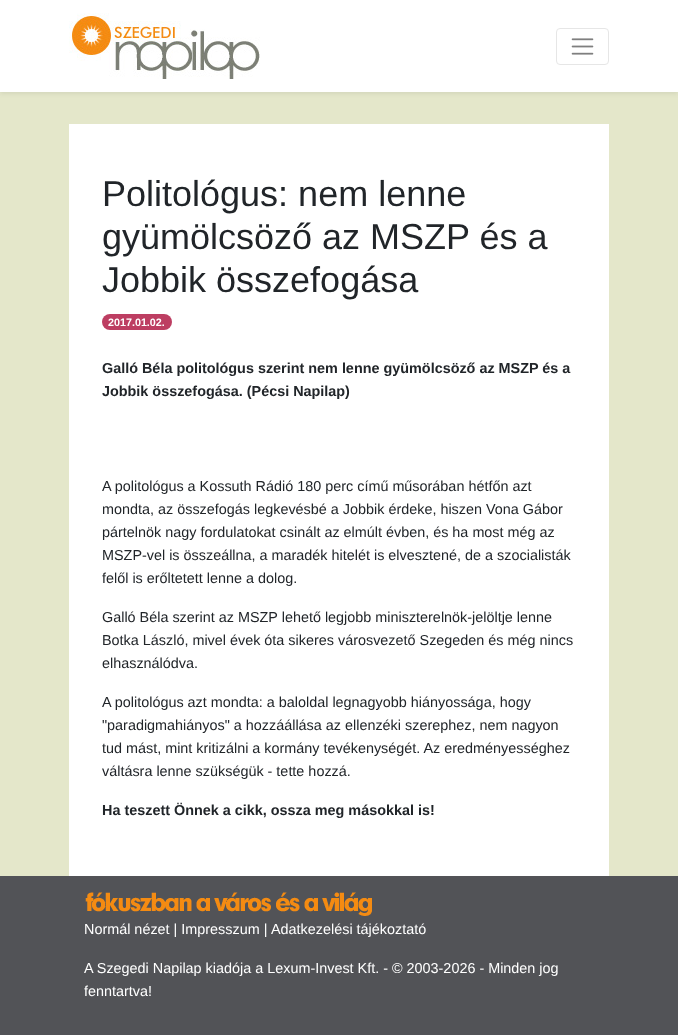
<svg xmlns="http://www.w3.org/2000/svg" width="678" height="1035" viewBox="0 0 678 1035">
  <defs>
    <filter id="blur1" x="-50%" y="-200%" width="200%" height="500%"><feGaussianBlur stdDeviation="2"/></filter>
  </defs>
  <rect width="100%" height="100%" fill="#e4e7ca"/>
  <rect x="0" y="2" width="678" height="92" fill="#000000" fill-opacity="0.07" filter="url(#blur1)"/>
  <rect x="0" y="0" width="678" height="92" fill="#ffffff"/>
  <image x="69" y="13" width="191" height="66" href="img1.png"/>
  <rect x="556.5" y="28.5" width="52" height="36" rx="3.5" fill="none" stroke="#e6e6e6"/>
  <image x="571" y="38" width="23" height="17" href="img2.png"/>
  <rect x="69" y="124" width="540" height="752" fill="#ffffff"/>
  <text x="102" y="206" font-family="Liberation Sans" font-size="36" fill="#212529">Politológus: nem lenne</text>
  <text x="102" y="249" font-family="Liberation Sans" font-size="36" fill="#212529">gyümölcsöző az MSZP és a</text>
  <text x="102" y="292" font-family="Liberation Sans" font-size="36" fill="#212529">Jobbik összefogása</text>
  <rect x="102" y="314" width="70" height="16" rx="8" fill="#bd3e62"/>
  <text x="108" y="326" font-family="Liberation Sans" font-size="10.75" font-weight="bold" fill="#ffffff">2017.01.02.</text>
  <text x="102" y="373" font-family="Liberation Sans" font-size="14.4" font-weight="bold" fill="#212529">Galló Béla politológus szerint nem lenne gyümölcsöző az MSZP és a</text>
  <text x="102" y="396" font-family="Liberation Sans" font-size="14.4" font-weight="bold" fill="#212529">Jobbik összefogása. (Pécsi Napilap)</text>
  <text x="102" y="491" font-family="Liberation Sans" font-size="14.4" fill="#212529">A politológus a Kossuth Rádió 180 perc című műsorában hétfőn azt</text>
  <text x="102" y="514" font-family="Liberation Sans" font-size="14.4" fill="#212529">mondta, az összefogás legkevésbé a Jobbik érdeke, hiszen Vona Gábor</text>
  <text x="102" y="537" font-family="Liberation Sans" font-size="14.4" fill="#212529">pártelnök nagy fordulatokat csinált az elmúlt évben, és ha most még az</text>
  <text x="102" y="560" font-family="Liberation Sans" font-size="14.4" fill="#212529">MSZP-vel is összeállna, a maradék hitelét is elvesztené, de a szocialisták</text>
  <text x="102" y="583" font-family="Liberation Sans" font-size="14.4" fill="#212529">felől is erőltetett lenne a dolog.</text>
  <text x="102" y="622" font-family="Liberation Sans" font-size="14.4" fill="#212529">Galló Béla szerint az MSZP lehető legjobb miniszterelnök-jelöltje lenne</text>
  <text x="102" y="645" font-family="Liberation Sans" font-size="14.4" fill="#212529">Botka László, mivel évek óta sikeres városvezető Szegeden és még nincs</text>
  <text x="102" y="668" font-family="Liberation Sans" font-size="14.4" fill="#212529">elhasználódva.</text>
  <text x="102" y="707" font-family="Liberation Sans" font-size="14.4" fill="#212529">A politológus azt mondta: a baloldal legnagyobb hiányossága, hogy</text>
  <text x="102" y="730" font-family="Liberation Sans" font-size="14.4" fill="#212529">"paradigmahiányos" a hozzáállása az ellenzéki szerephez, nem nagyon</text>
  <text x="102" y="753" font-family="Liberation Sans" font-size="14.4" fill="#212529">tud mást, mint kritizálni a kormány tevékenységét. Az eredményességhez</text>
  <text x="102" y="776" font-family="Liberation Sans" font-size="14.4" fill="#212529">váltásra lenne szükségük - tette hozzá.</text>
  <text x="102" y="815" font-family="Liberation Sans" font-size="14.4" font-weight="bold" fill="#212529">Ha teszett Önnek a cikk, ossza meg másokkal is!</text>
  <rect x="0" y="876" width="678" height="159" fill="#525357"/>
  <image x="85" y="892" width="287" height="24" href="img3.png"/>
  <text x="84" y="934" font-family="Liberation Sans" font-size="14.4" fill="#ffffff">Normál nézet | Impresszum |</text>
  <text x="271" y="934" font-family="Liberation Sans" font-size="14.4" fill="#ffffff">Adatkezelési tájékoztató</text>
  <text x="84" y="973" font-family="Liberation Sans" font-size="14.4" fill="#ffffff">A Szegedi Napilap kiadója a Lexum-Invest Kft. - © 2003-2026 - Minden jog</text>
  <text x="84" y="996" font-family="Liberation Sans" font-size="14.4" fill="#ffffff">fenntartva!</text>
</svg>
